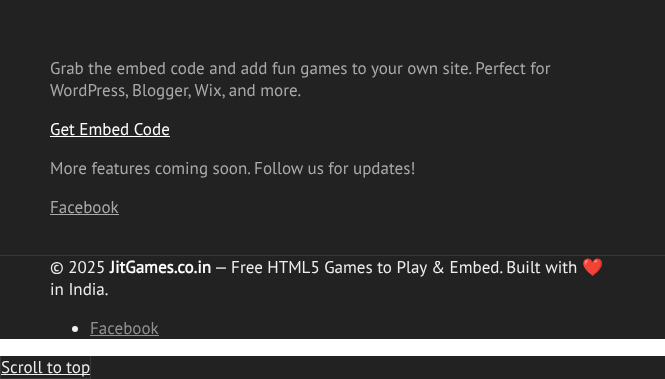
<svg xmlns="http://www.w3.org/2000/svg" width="665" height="379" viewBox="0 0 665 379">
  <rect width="100%" height="100%" fill="#222222"/>
  <rect x="0.5" y="355.5" width="90" height="23" fill="none" stroke="#373737"/>
  <rect x="0" y="339" width="665" height="17" fill="#ffffff"/>
  <text x="50" y="74" font-family="PT Sans" font-size="17" fill="#aaaaaa">Grab the embed code and add fun games to your own site. Perfect for</text>
  <text x="50" y="96" font-family="PT Sans" font-size="17" fill="#aaaaaa">WordPress, Blogger, Wix, and more.</text>
  <text x="50" y="135" font-family="PT Sans" font-size="17" fill="#ffffff">Get Embed Code</text>
  <rect x="50" y="136" width="120" height="1" fill="#ffffff"/>
  <text x="50" y="174" font-family="PT Sans" font-size="17" fill="#aaaaaa">More features coming soon. Follow us for updates!</text>
  <text x="50" y="213" font-family="PT Sans" font-size="17" fill="#aaaaaa">Facebook</text>
  <rect x="50" y="214" width="69" height="1" fill="#aaaaaa"/>
  <rect x="0" y="255" width="665" height="1" fill="#373737"/>
  <text x="50" y="273" font-family="PT Sans" font-size="17" fill="#eeeeee">© 2025</text>
  <text x="110" y="273" font-family="PT Sans" font-size="17" font-weight="bold" fill="#ffffff">JitGames.co.in</text>
  <text x="214" y="273" font-family="PT Sans" font-size="17" fill="#eeeeee">— Free HTML5 Games to Play &amp; Embed. Built with</text>
  <text x="582" y="273" font-family="Noto Color Emoji" font-size="17" fill="#eeeeee">❤️</text>
  <text x="50" y="295" font-family="PT Sans" font-size="17" fill="#eeeeee">in India.</text>
  <circle cx="75" cy="329" r="3" fill="#eeeeee"/>
  <text x="90" y="334" font-family="PT Sans" font-size="17" fill="#919191">Facebook</text>
  <rect x="90" y="335" width="69" height="1" fill="#919191"/>
  <rect x="1" y="374" width="89" height="1" fill="#eeeeee"/>
  <text x="1" y="373" font-family="PT Sans" font-size="17" fill="#eeeeee">Scroll to top</text>
</svg>
